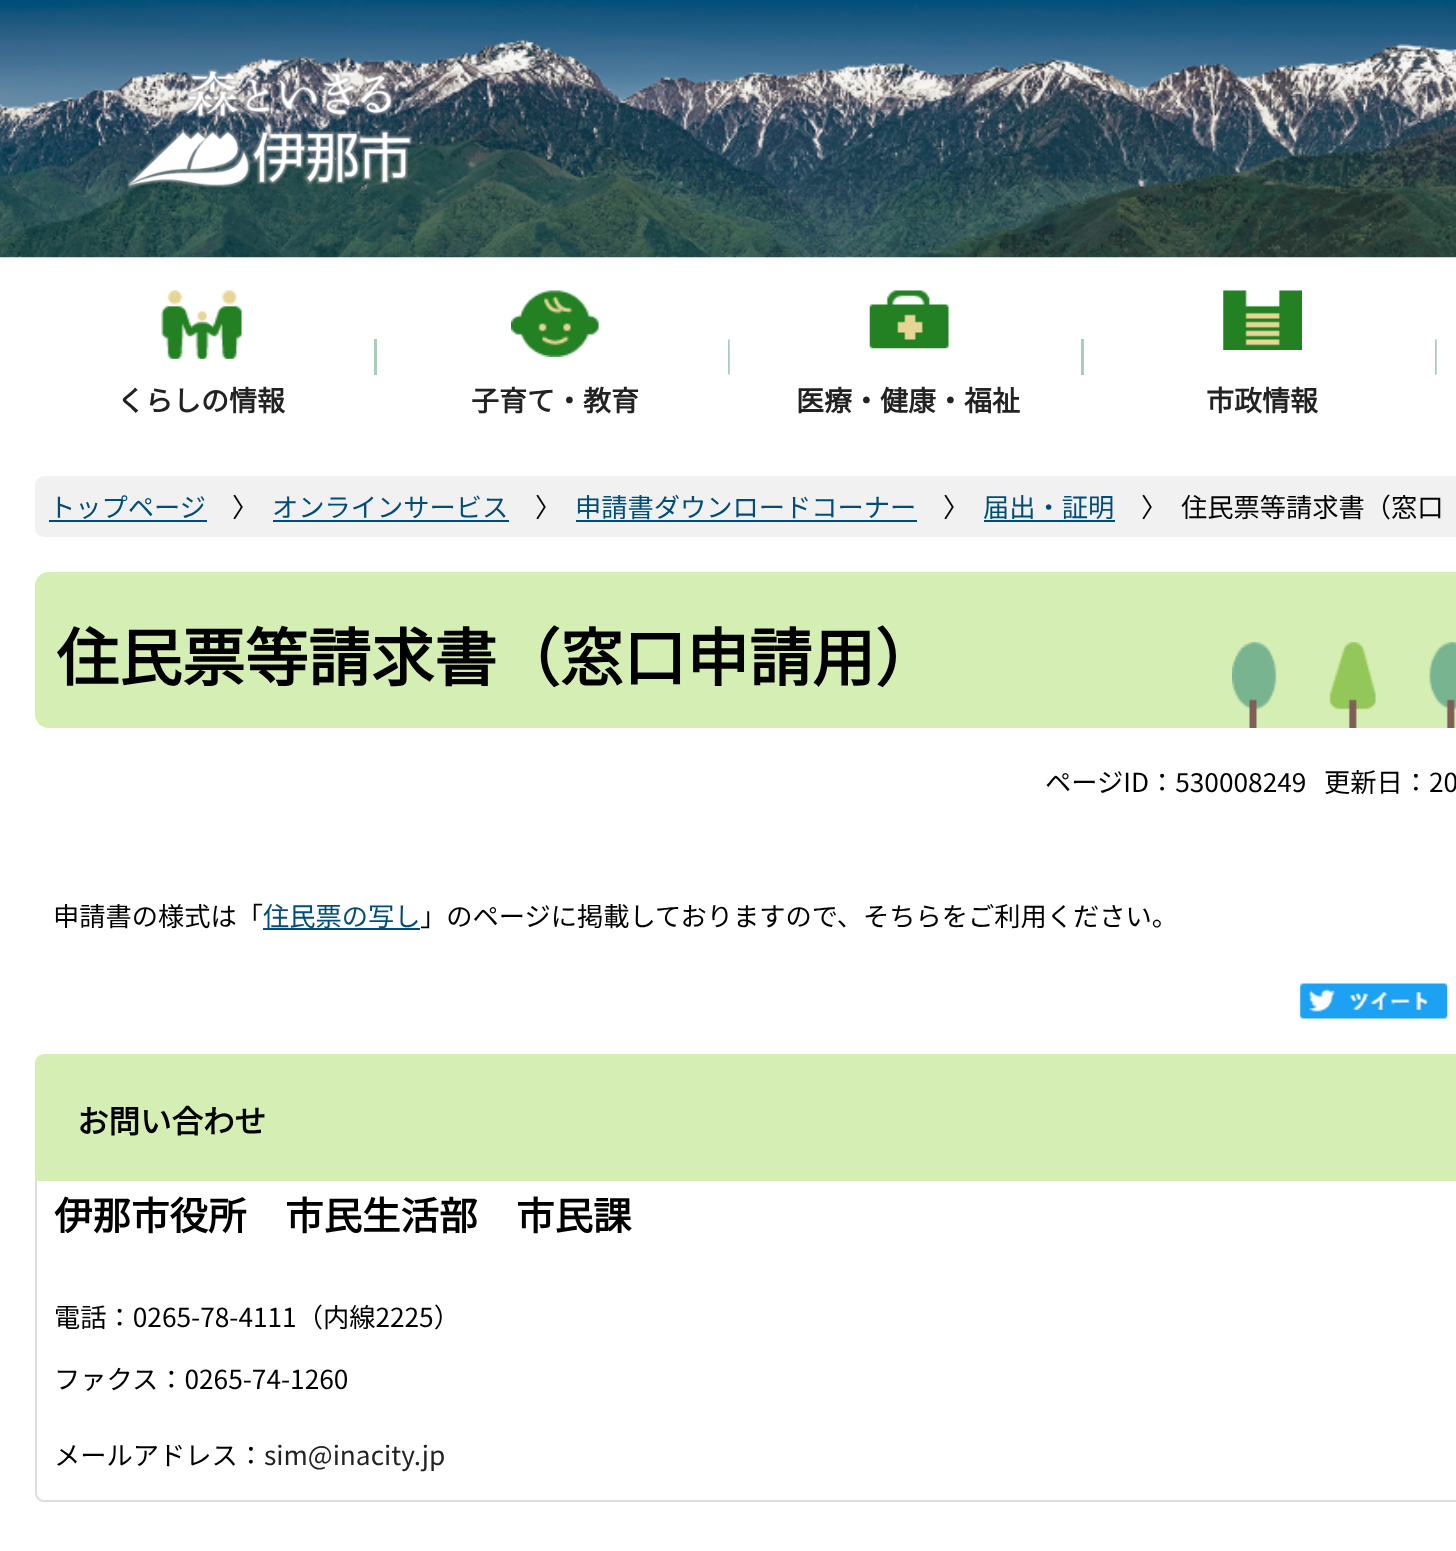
<svg xmlns="http://www.w3.org/2000/svg" width="1456" height="1551" viewBox="0 0 1456 1551">
  <rect width="100%" height="100%" fill="#ffffff"/>
  <image x="0" y="0" width="1456" height="258" href="img1.png"/>
  <image x="126" y="69" width="287" height="119" href="img2.png"/>
  <rect x="374" y="339" width="3" height="36" fill="#aaccbb"/>
  <image x="161" y="290" width="81" height="69" href="img3.png"/>
  <text x="117" y="411" font-family="Noto Sans JP" font-size="28" font-weight="bold" fill="#222222">くらしの情報</text>
  <image x="728" y="339" width="2" height="36" href="img4.png"/>
  <image x="511" y="290" width="88" height="67" href="img5.png"/>
  <text x="471" y="411" font-family="Noto Sans JP" font-size="28" font-weight="bold" fill="#222222">子育て・教育</text>
  <rect x="1081" y="339" width="3" height="36" fill="#aaccbb"/>
  <image x="869" y="290" width="80" height="59" href="img6.png"/>
  <text x="796" y="411" font-family="Noto Sans JP" font-size="28" font-weight="bold" fill="#222222">医療・健康・福祉</text>
  <image x="1435" y="339" width="2" height="36" href="img4.png"/>
  <image x="1223" y="290" width="79" height="60" href="img7.png"/>
  <text x="1206" y="411" font-family="Noto Sans JP" font-size="28" font-weight="bold" fill="#222222">市政情報</text>
  <rect x="35" y="476" width="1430" height="61" rx="9" fill="#f1f1f1"/>
  <text x="49" y="517" font-family="Noto Sans JP" font-size="26.25" font-weight="100" fill="#004d77">トップページ</text>
  <rect x="49" y="520" width="158" height="2" fill="#004d77"/>
  <text x="232" y="517" font-family="Noto Sans JP" font-size="26.25" font-weight="100" fill="#000000">〉</text>
  <text x="272" y="517" font-family="Noto Sans JP" font-size="26.25" font-weight="100" fill="#004d77">オンラインサービス</text>
  <rect x="273" y="520" width="236" height="2" fill="#004d77"/>
  <text x="535" y="517" font-family="Noto Sans JP" font-size="26.25" font-weight="100" fill="#000000">〉</text>
  <text x="575" y="517" font-family="Noto Sans JP" font-size="26.25" font-weight="100" fill="#004d77">申請書ダウンロードコーナー</text>
  <rect x="576" y="520" width="341" height="2" fill="#004d77"/>
  <text x="943" y="517" font-family="Noto Sans JP" font-size="26.25" font-weight="100" fill="#000000">〉</text>
  <text x="983" y="517" font-family="Noto Sans JP" font-size="26.25" font-weight="100" fill="#004d77">届出・証明</text>
  <rect x="984" y="520" width="131" height="2" fill="#004d77"/>
  <text x="1141" y="517" font-family="Noto Sans JP" font-size="26.25" font-weight="100" fill="#000000">〉</text>
  <text x="1181" y="517" font-family="Noto Sans JP" font-size="26.25" font-weight="100" fill="#000000">住民票等請求書（窓口</text>
  <rect x="35" y="572" width="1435" height="156" rx="14" fill="#d5eeb3"/>
  <image x="1232" y="642" width="224" height="86" href="img8.png"/>
  <text x="56" y="681" font-family="Noto Sans JP" font-size="63" font-weight="bold" fill="#000000">住民票等請求書（窓口申請用）</text>
  <text x="1045" y="792" font-family="Noto Sans JP" font-size="26.25" font-weight="100" fill="#000000">ページID：530008249</text>
  <text x="1324" y="792" font-family="Noto Sans JP" font-size="26.25" font-weight="100" fill="#000000">更新日：20</text>
  <text x="53" y="926" font-family="Noto Sans JP" font-size="26.25" font-weight="100" fill="#000000">申請書の様式は「</text>
  <rect x="263" y="928" width="157" height="2" fill="#004d77"/>
  <text x="263" y="926" font-family="Noto Sans JP" font-size="26.25" font-weight="100" fill="#004d77">住民票の写し</text>
  <text x="420" y="926" font-family="Noto Sans JP" font-size="26.25" font-weight="100" fill="#000000">」のページに掲載しておりますので、そちらをご利用ください。</text>
  <image x="1300" y="983" width="148" height="36" href="img9.png"/>
  <path d="M44 1054H1456C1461 1054 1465 1058 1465 1063V1181H35V1063C35 1058 39 1054 44 1054Z" fill="#d5eeb3"/>
  <text x="77" y="1133" font-family="Noto Sans JP" font-size="31.5" font-weight="bold" fill="#000000">お問い合わせ</text>
  <path d="M35 1181H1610V1493C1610 1498 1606 1502 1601 1502H44C39 1502 35 1498 35 1493ZM37 1181H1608V1493C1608 1497 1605 1500 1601 1500H44C40 1500 37 1497 37 1493Z" fill="#dddddd" fill-rule="evenodd"/>
  <text x="54" y="1230" font-family="Noto Sans JP" font-size="38.5" font-weight="bold" fill="#000000">伊那市役所　市民生活部　市民課</text>
  <text x="54" y="1327" font-family="Noto Sans JP" font-size="26.25" font-weight="100" fill="#000000">電話：0265-78-4111（内線2225）</text>
  <text x="54" y="1389" font-family="Noto Sans JP" font-size="26.25" font-weight="100" fill="#000000">ファクス：0265-74-1260</text>
  <text x="54" y="1465" font-family="Noto Sans JP" font-size="26.25" font-weight="100" fill="#000000">メールアドレス：</text>
  <text x="264" y="1465" font-family="Noto Sans JP" font-size="26.25" font-weight="100" fill="#222222">sim@inacity.jp</text>
</svg>
